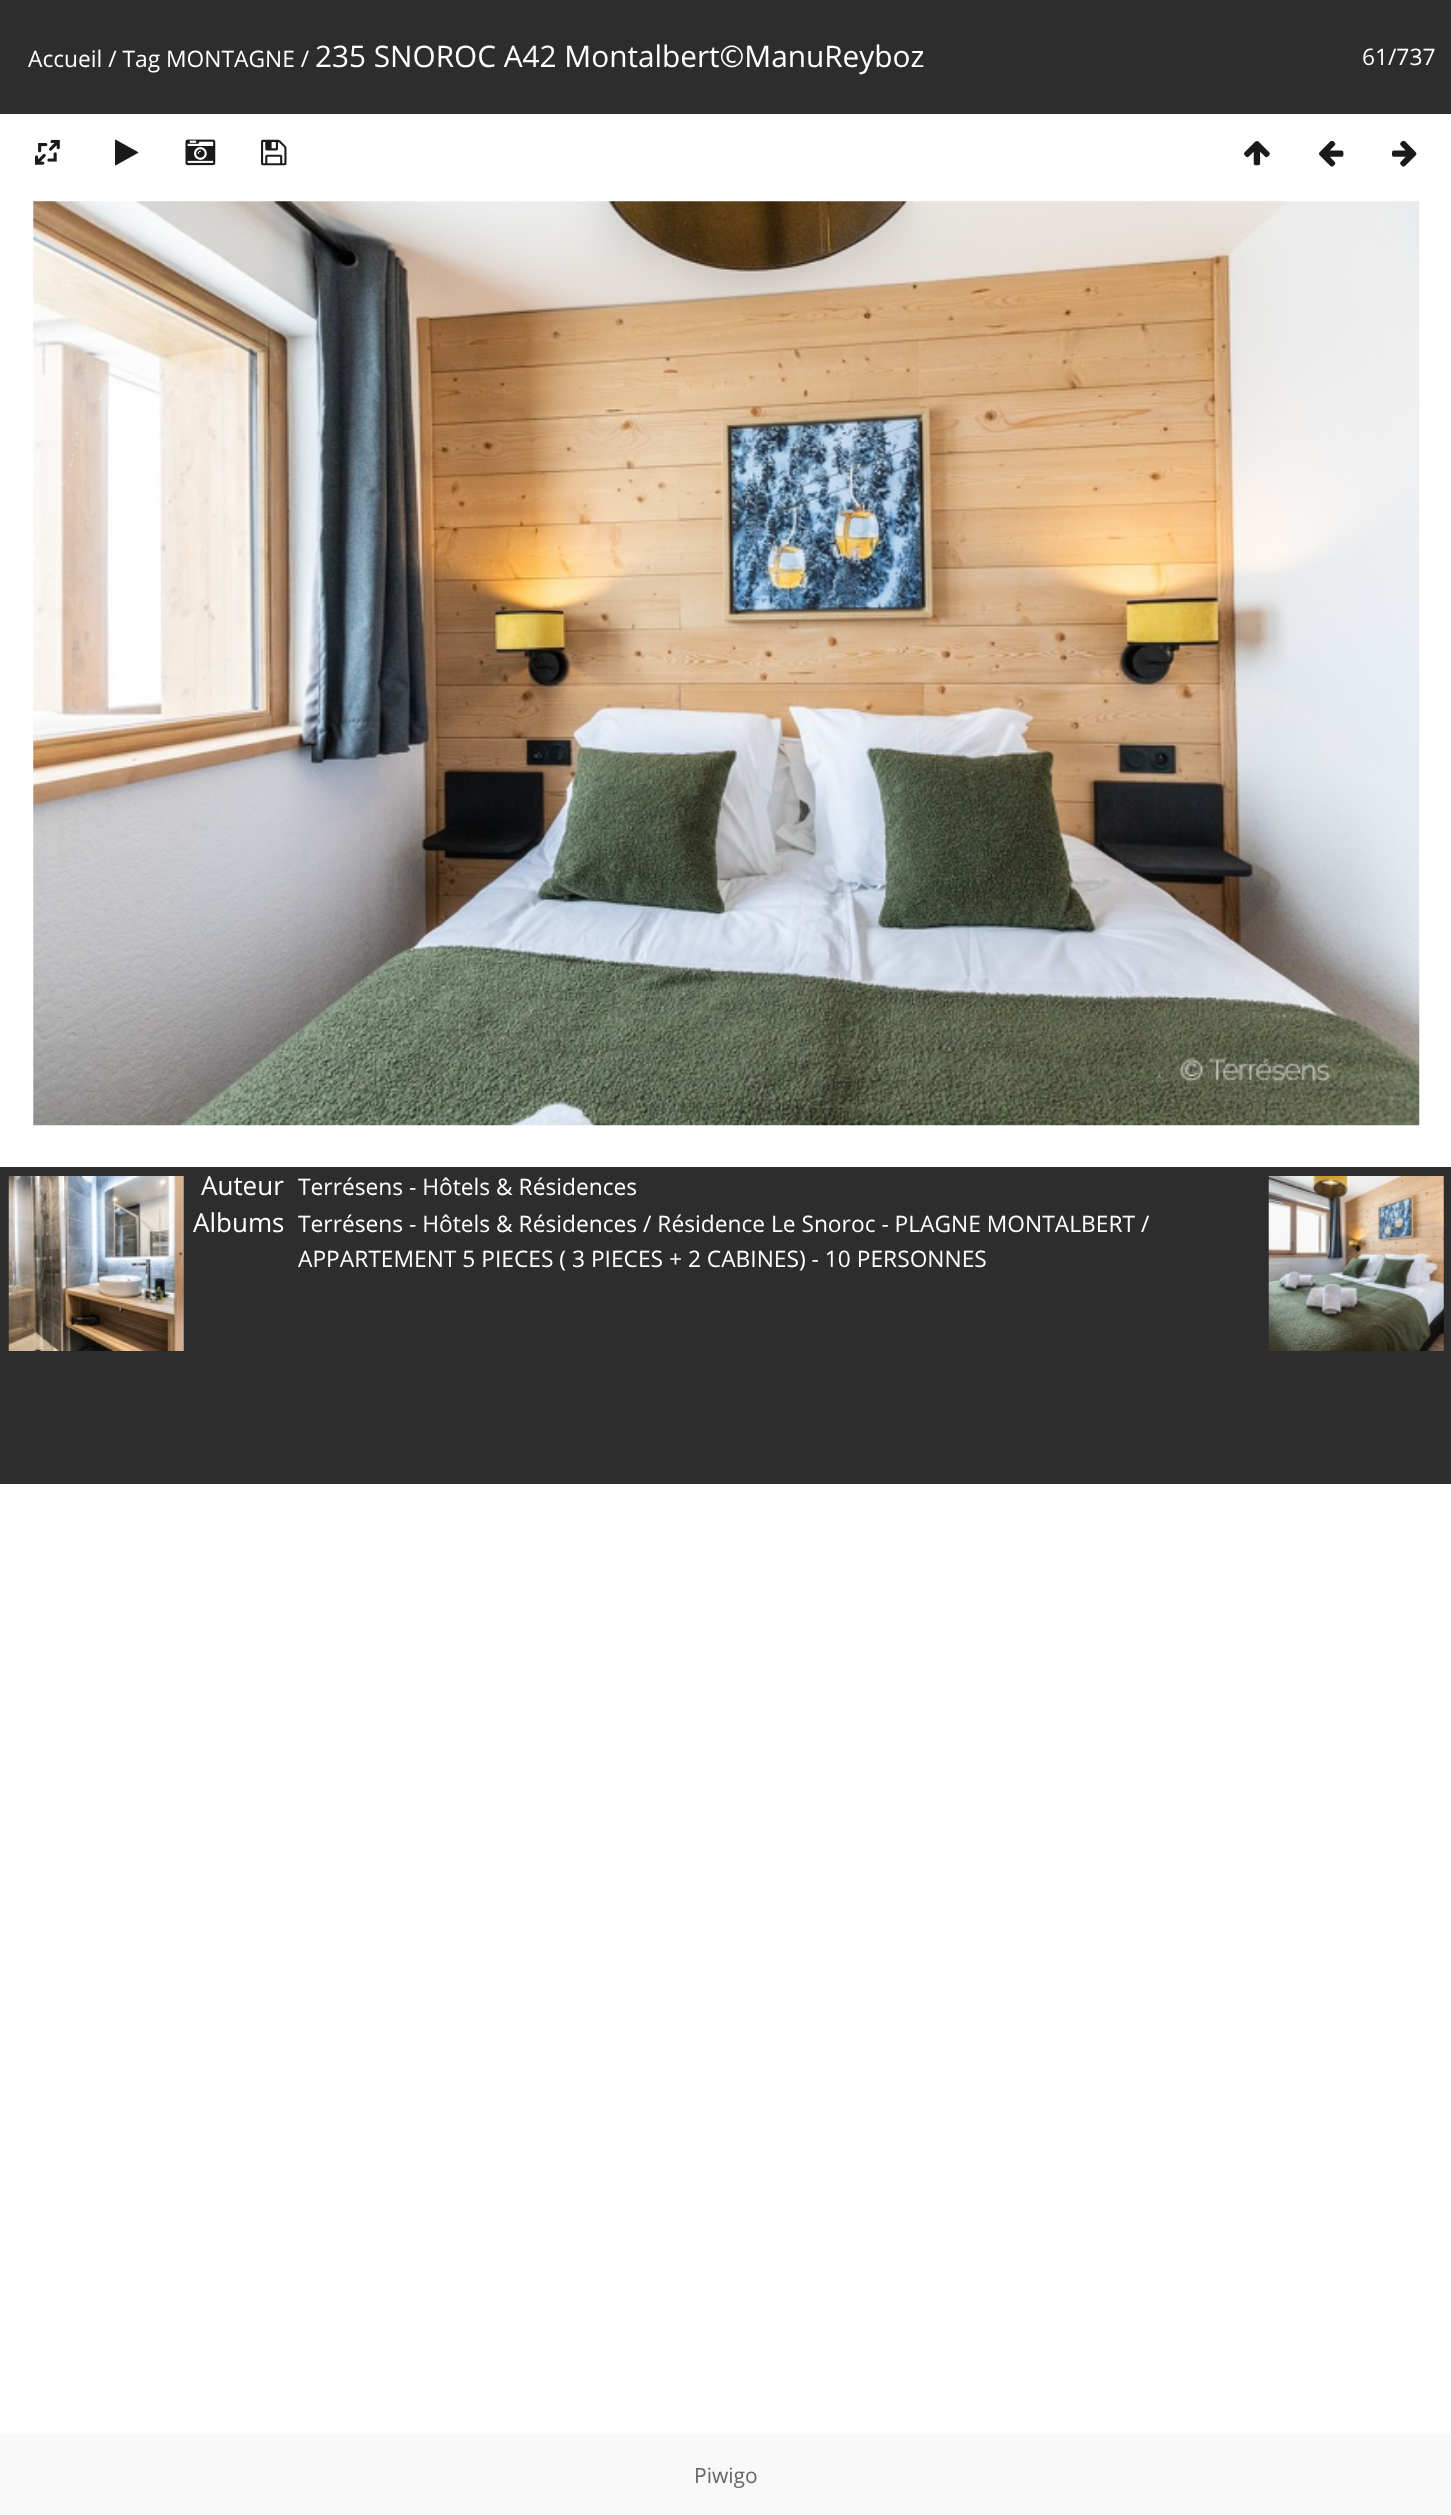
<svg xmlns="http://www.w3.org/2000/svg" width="1451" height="2515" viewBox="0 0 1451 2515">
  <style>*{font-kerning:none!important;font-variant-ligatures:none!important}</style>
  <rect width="100%" height="100%" fill="#ffffff"/>
  <rect x="0" y="0" width="1451" height="114" fill="#2d2d2d"/>
  <text x="28" y="67" font-family="Open Sans" font-size="22.75" fill="#ffffff">Accueil / Tag MONTAGNE /</text>
  <text x="315" y="67" font-family="Open Sans" font-size="29.75" fill="#ffffff">235 SNOROC A42 Montalbert©ManuReyboz</text>
  <text x="1362" y="65" font-family="Open Sans" font-size="22.75" fill="#ffffff">61/737</text>
  <image x="35" y="139" width="25" height="26" href="img1.png"/>
  <text x="115" y="163" font-family="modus" font-size="29.75" fill="#1a1a1a">▶</text>
  <image x="185" y="139" width="31" height="27" href="img2.png"/>
  <text x="261" y="163" font-family="modus" font-size="29.75" fill="#1a1a1a">💾</text>
  <text x="1244" y="163" font-family="modus" font-size="29.75" fill="#1a1a1a">↑</text>
  <text x="1319" y="163" font-family="modus" font-size="29.75" fill="#1a1a1a">←</text>
  <text x="1392" y="163" font-family="modus" font-size="29.75" fill="#1a1a1a">→</text>
  <image x="33" y="201" width="1387" height="925" href="img3.png"/>
  <rect x="0" y="1167" width="1451" height="317" fill="#2d2d2d"/>
  <image x="8" y="1176" width="176" height="175" href="img4.png"/>
  <image x="1268" y="1176" width="176" height="175" href="img5.png"/>
  <text x="201" y="1195" font-family="Open Sans" font-size="26" fill="#ffffff">Auteur</text>
  <text x="298" y="1195" font-family="Open Sans" font-size="22.75" fill="#ffffff">Terrésens - Hôtels &amp; Résidences</text>
  <text x="193" y="1232" font-family="Open Sans" font-size="26" fill="#ffffff">Albums</text>
  <text x="298" y="1232" font-family="Open Sans" font-size="22.75" fill="#ffffff">Terrésens - Hôtels &amp; Résidences / Résidence Le Snoroc - PLAGNE MONTALBERT</text>
  <text x="1141" y="1232" font-family="Open Sans" font-size="22.75" fill="#ffffff">/</text>
  <text x="298" y="1267" font-family="Open Sans" font-size="22.75" fill="#ffffff">APPARTEMENT 5 PIECES ( 3 PIECES + 2 CABINES) - 10 PERSONNES</text>
  <rect x="0" y="2434" width="1451" height="81" fill="#f9f9f9"/>
  <text x="694" y="2483" font-family="Open Sans" font-size="21" fill="#666666">Piwigo</text>
</svg>
